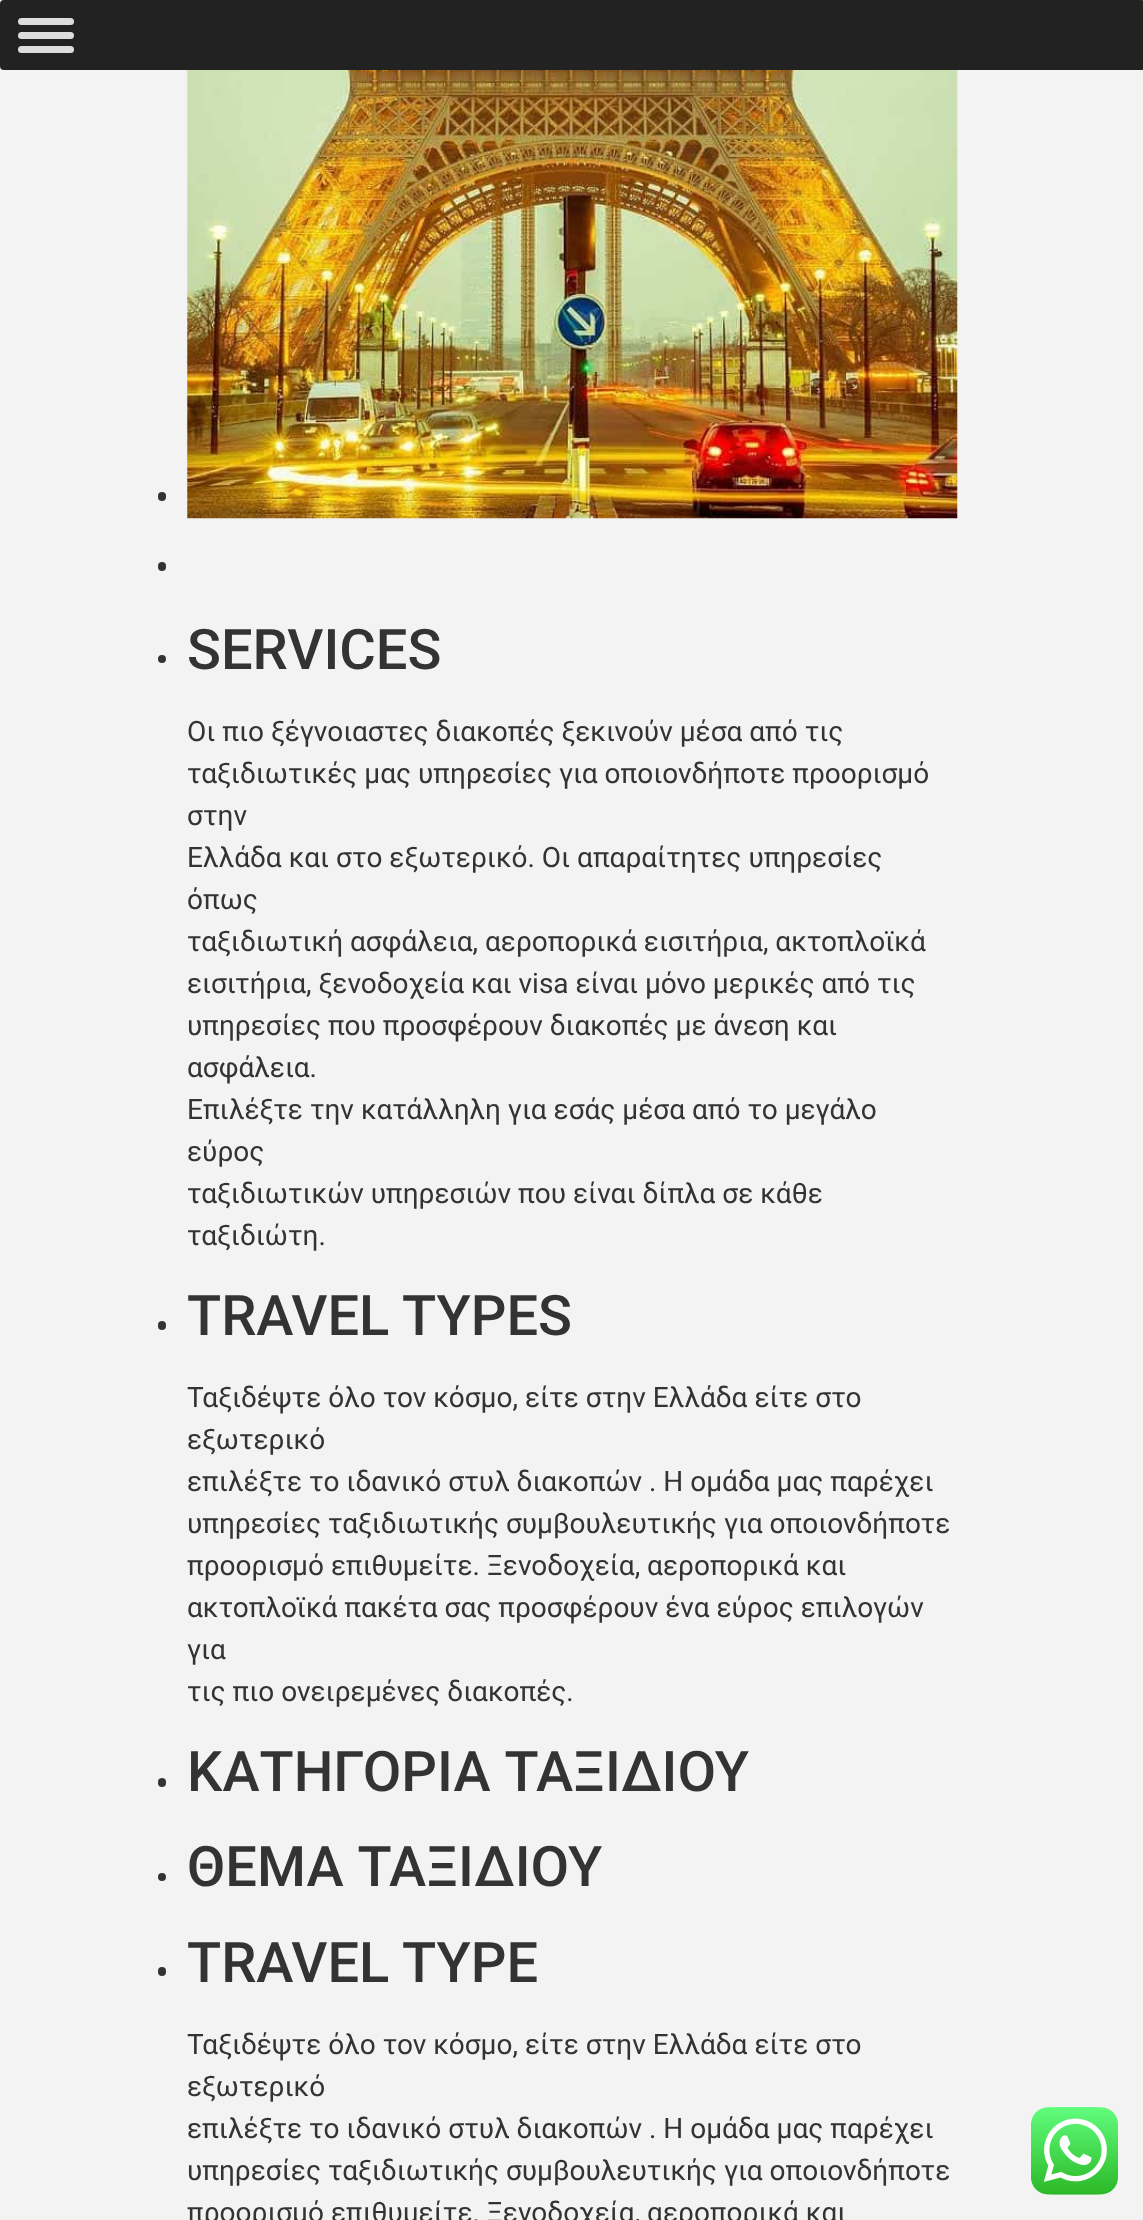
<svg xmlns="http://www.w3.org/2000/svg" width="1143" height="2220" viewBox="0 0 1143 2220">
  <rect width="100%" height="100%" fill="#f3f3f3"/>
  <rect x="0" y="0" width="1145" height="70" rx="4" fill="#222222"/>
  <rect x="18" y="18" width="56" height="7" rx="3.5" fill="#dddddd"/>
  <rect x="18" y="32" width="56" height="7" rx="3.5" fill="#dddddd"/>
  <rect x="18" y="46" width="56" height="7" rx="3.5" fill="#dddddd"/>
  <rect x="158" y="492" width="8" height="9" rx="4" fill="#333333"/>
  <image x="187" y="70" width="771" height="449" href="img1.png"/>
  <rect x="158" y="562" width="8" height="9" rx="4" fill="#333333"/>
  <circle cx="162" cy="659" r="4" fill="#333333"/>
  <text x="187" y="669" font-family="Roboto" font-size="56" font-weight="500" fill="#333333">SERVICES</text>
  <text x="187" y="741" font-family="Roboto" font-size="28" fill="#333333">Οι πιο ξέγνοιαστες διακοπές ξεκινούν μέσα από τις</text>
  <text x="187" y="783" font-family="Roboto" font-size="28" fill="#333333">ταξιδιωτικές μας υπηρεσίες για οποιονδήποτε προορισμό</text>
  <text x="187" y="825" font-family="Roboto" font-size="28" fill="#333333">στην</text>
  <text x="187" y="867" font-family="Roboto" font-size="28" fill="#333333">Ελλάδα και στο εξωτερικό. Οι απαραίτητες υπηρεσίες</text>
  <text x="187" y="909" font-family="Roboto" font-size="28" fill="#333333">όπως</text>
  <text x="187" y="951" font-family="Roboto" font-size="28" fill="#333333">ταξιδιωτική ασφάλεια, αεροπορικά εισιτήρια, ακτοπλοϊκά</text>
  <text x="187" y="993" font-family="Roboto" font-size="28" fill="#333333">εισιτήρια, ξενοδοχεία και visa είναι μόνο μερικές από τις</text>
  <text x="187" y="1035" font-family="Roboto" font-size="28" fill="#333333">υπηρεσίες που προσφέρουν διακοπές με άνεση και</text>
  <text x="187" y="1077" font-family="Roboto" font-size="28" fill="#333333">ασφάλεια.</text>
  <text x="187" y="1119" font-family="Roboto" font-size="28" fill="#333333">Επιλέξτε την κατάλληλη για εσάς μέσα από το μεγάλο</text>
  <text x="187" y="1161" font-family="Roboto" font-size="28" fill="#333333">εύρος</text>
  <text x="187" y="1203" font-family="Roboto" font-size="28" fill="#333333">ταξιδιωτικών υπηρεσιών που είναι δίπλα σε κάθε</text>
  <text x="187" y="1245" font-family="Roboto" font-size="28" fill="#333333">ταξιδιώτη.</text>
  <rect x="158" y="1321" width="8" height="9" rx="4" fill="#333333"/>
  <text x="187" y="1335" font-family="Roboto" font-size="56" font-weight="500" fill="#333333">TRAVEL TYPES</text>
  <text x="187" y="1407" font-family="Roboto" font-size="28" fill="#333333">Ταξιδέψτε όλο τον κόσμο, είτε στην Ελλάδα είτε στο</text>
  <text x="187" y="1449" font-family="Roboto" font-size="28" fill="#333333">εξωτερικό</text>
  <text x="187" y="1491" font-family="Roboto" font-size="28" fill="#333333">επιλέξτε το ιδανικό στυλ διακοπών . Η ομάδα μας παρέχει</text>
  <text x="187" y="1533" font-family="Roboto" font-size="28" fill="#333333">υπηρεσίες ταξιδιωτικής συμβουλευτικής για οποιονδήποτε</text>
  <text x="187" y="1575" font-family="Roboto" font-size="28" fill="#333333">προορισμό επιθυμείτε. Ξενοδοχεία, αεροπορικά και</text>
  <text x="187" y="1617" font-family="Roboto" font-size="28" fill="#333333">ακτοπλοϊκά πακέτα σας προσφέρουν ένα εύρος επιλογών</text>
  <text x="187" y="1659" font-family="Roboto" font-size="28" fill="#333333">για</text>
  <text x="187" y="1701" font-family="Roboto" font-size="28" fill="#333333">τις πιο ονειρεμένες διακοπές.</text>
  <rect x="158" y="1778" width="8" height="9" rx="4" fill="#333333"/>
  <text x="187" y="1791" font-family="Roboto" font-size="56" font-weight="500" fill="#333333">ΚΑΤΗΓΟΡΙΑ ΤΑΞΙΔΙΟΥ</text>
  <circle cx="162" cy="1877" r="4" fill="#333333"/>
  <text x="187" y="1886" font-family="Roboto" font-size="56" font-weight="500" fill="#333333">ΘΕΜΑ ΤΑΞΙΔΙΟΥ</text>
  <rect x="158" y="1967" width="8" height="9" rx="4" fill="#333333"/>
  <text x="187" y="1982" font-family="Roboto" font-size="56" font-weight="500" fill="#333333">TRAVEL TYPE</text>
  <text x="187" y="2054" font-family="Roboto" font-size="28" fill="#333333">Ταξιδέψτε όλο τον κόσμο, είτε στην Ελλάδα είτε στο</text>
  <text x="187" y="2096" font-family="Roboto" font-size="28" fill="#333333">εξωτερικό</text>
  <text x="187" y="2138" font-family="Roboto" font-size="28" fill="#333333">επιλέξτε το ιδανικό στυλ διακοπών . Η ομάδα μας παρέχει</text>
  <text x="187" y="2180" font-family="Roboto" font-size="28" fill="#333333">υπηρεσίες ταξιδιωτικής συμβουλευτικής για οποιονδήποτε</text>
  <text x="187" y="2222" font-family="Roboto" font-size="28" fill="#333333">προορισμό επιθυμείτε. Ξενοδοχεία, αεροπορικά και</text>
  <image x="1031" y="2107" width="87" height="88" href="img2.png"/>
</svg>
